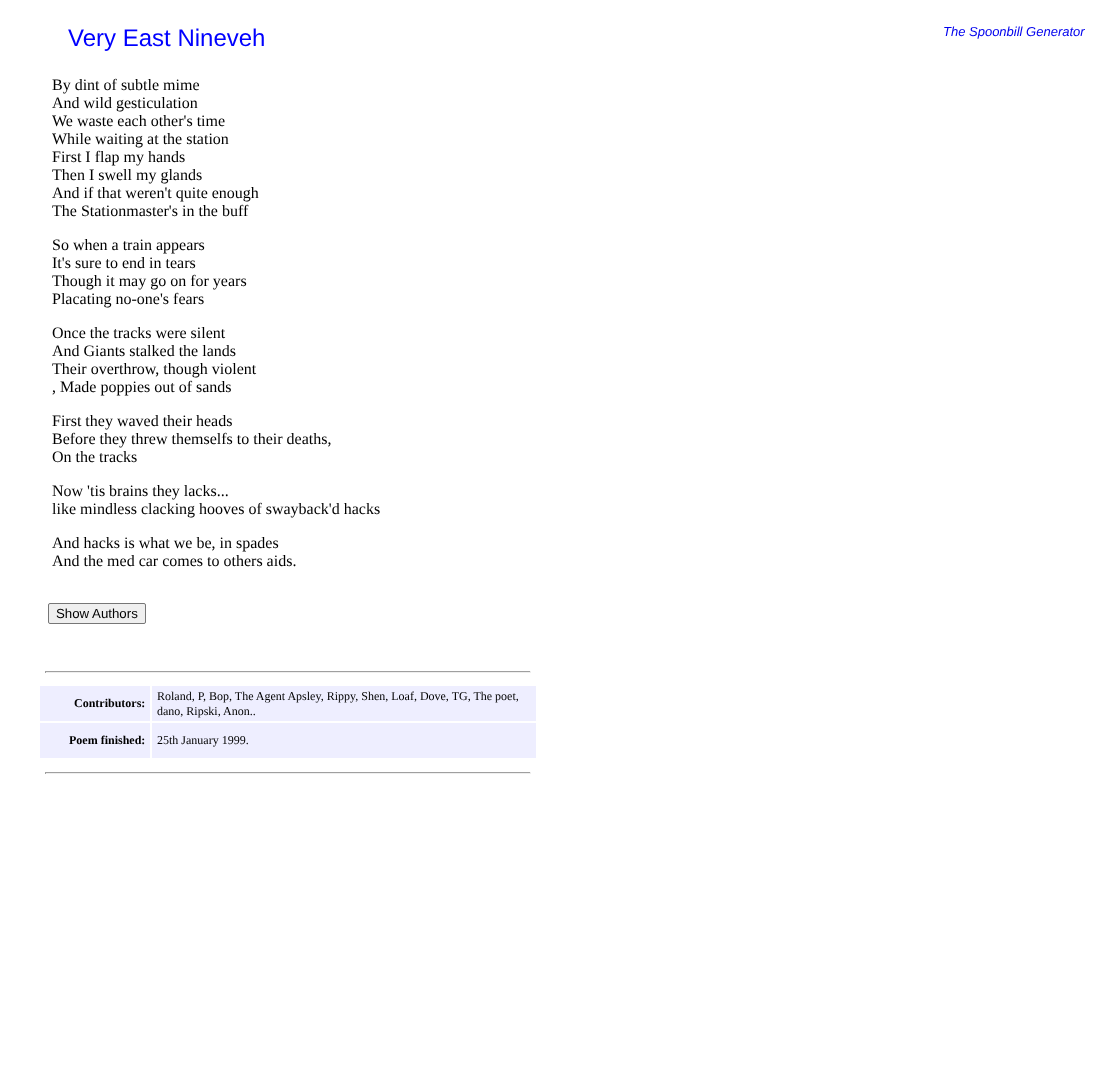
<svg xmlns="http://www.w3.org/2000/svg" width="1093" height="1088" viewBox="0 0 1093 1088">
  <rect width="100%" height="100%" fill="#ffffff"/>
  <text x="68" y="46" font-family="Liberation Sans" font-size="24" fill="#0000ff">Very East Nineveh</text>
  <text x="943" y="36" font-family="Liberation Sans" font-size="13" font-style="italic" fill="#0000ee">The Spoonbill Generator</text>
  <text x="52" y="90" font-family="Liberation Serif" font-size="16" fill="#000000">By dint of subtle mime</text>
  <text x="52" y="108" font-family="Liberation Serif" font-size="16" fill="#000000">And wild gesticulation</text>
  <text x="52" y="126" font-family="Liberation Serif" font-size="16" fill="#000000">We waste each other's time</text>
  <text x="52" y="144" font-family="Liberation Serif" font-size="16" fill="#000000">While waiting at the station</text>
  <text x="52" y="162" font-family="Liberation Serif" font-size="16" fill="#000000">First I flap my hands</text>
  <text x="52" y="180" font-family="Liberation Serif" font-size="16" fill="#000000">Then I swell my glands</text>
  <text x="52" y="198" font-family="Liberation Serif" font-size="16" fill="#000000">And if that weren't quite enough</text>
  <text x="52" y="216" font-family="Liberation Serif" font-size="16" fill="#000000">The Stationmaster's in the buff</text>
  <text x="52" y="250" font-family="Liberation Serif" font-size="16" fill="#000000">So when a train appears</text>
  <text x="52" y="268" font-family="Liberation Serif" font-size="16" fill="#000000">It's sure to end in tears</text>
  <text x="52" y="286" font-family="Liberation Serif" font-size="16" fill="#000000">Though it may go on for years</text>
  <text x="52" y="304" font-family="Liberation Serif" font-size="16" fill="#000000">Placating no-one's fears</text>
  <text x="52" y="338" font-family="Liberation Serif" font-size="16" fill="#000000">Once the tracks were silent</text>
  <text x="52" y="356" font-family="Liberation Serif" font-size="16" fill="#000000">And Giants stalked the lands</text>
  <text x="52" y="374" font-family="Liberation Serif" font-size="16" fill="#000000">Their overthrow, though violent</text>
  <text x="52" y="392" font-family="Liberation Serif" font-size="16" fill="#000000">, Made poppies out of sands</text>
  <text x="52" y="426" font-family="Liberation Serif" font-size="16" fill="#000000">First they waved their heads</text>
  <text x="52" y="444" font-family="Liberation Serif" font-size="16" fill="#000000">Before they threw themselfs to their deaths,</text>
  <text x="52" y="462" font-family="Liberation Serif" font-size="16" fill="#000000">On the tracks</text>
  <text x="52" y="496" font-family="Liberation Serif" font-size="16" fill="#000000">Now 'tis brains they lacks...</text>
  <text x="52" y="514" font-family="Liberation Serif" font-size="16" fill="#000000">like mindless clacking hooves of swayback'd hacks</text>
  <text x="52" y="548" font-family="Liberation Serif" font-size="16" fill="#000000">And hacks is what we be, in spades</text>
  <text x="52" y="566" font-family="Liberation Serif" font-size="16" fill="#000000">And the med car comes to others aids.</text>
  <rect x="48.5" y="603.5" width="97" height="20" rx="1.5" fill="#efefef" stroke="#767676"/>
  <text x="56" y="618" font-family="Liberation Sans" font-size="13.25" fill="#000000">Show Authors</text>
  <rect x="45" y="671" width="486" height="1" fill="#9f9f9f"/>
  <rect x="530" y="671" width="1" height="2" fill="#eeeeee"/>
  <rect x="45" y="672" width="486" height="1" fill="#eeeeee"/>
  <rect x="45" y="671" width="1" height="2" fill="#9f9f9f"/>
  <rect x="40" y="686" width="110" height="35" fill="#eeeeff"/>
  <text x="74" y="707" font-family="Liberation Serif" font-size="12" font-weight="bold" fill="#000000">Contributors:</text>
  <rect x="152" y="686" width="384" height="35" fill="#eeeeff"/>
  <text x="157" y="700" font-family="Liberation Serif" font-size="12" fill="#000000">Roland, P, Bop, The Agent Apsley, Rippy, Shen, Loaf, Dove, TG, The poet,</text>
  <text x="157" y="715" font-family="Liberation Serif" font-size="12" fill="#000000">dano, Ripski, Anon..</text>
  <rect x="40" y="723" width="110" height="35" fill="#eeeeff"/>
  <text x="69" y="744" font-family="Liberation Serif" font-size="12" font-weight="bold" fill="#000000">Poem finished:</text>
  <rect x="152" y="723" width="384" height="35" fill="#eeeeff"/>
  <text x="157" y="744" font-family="Liberation Serif" font-size="12" fill="#000000">25th January 1999.</text>
  <rect x="45" y="772" width="486" height="1" fill="#9f9f9f"/>
  <rect x="530" y="772" width="1" height="2" fill="#eeeeee"/>
  <rect x="45" y="773" width="486" height="1" fill="#eeeeee"/>
  <rect x="45" y="772" width="1" height="2" fill="#9f9f9f"/>
</svg>
